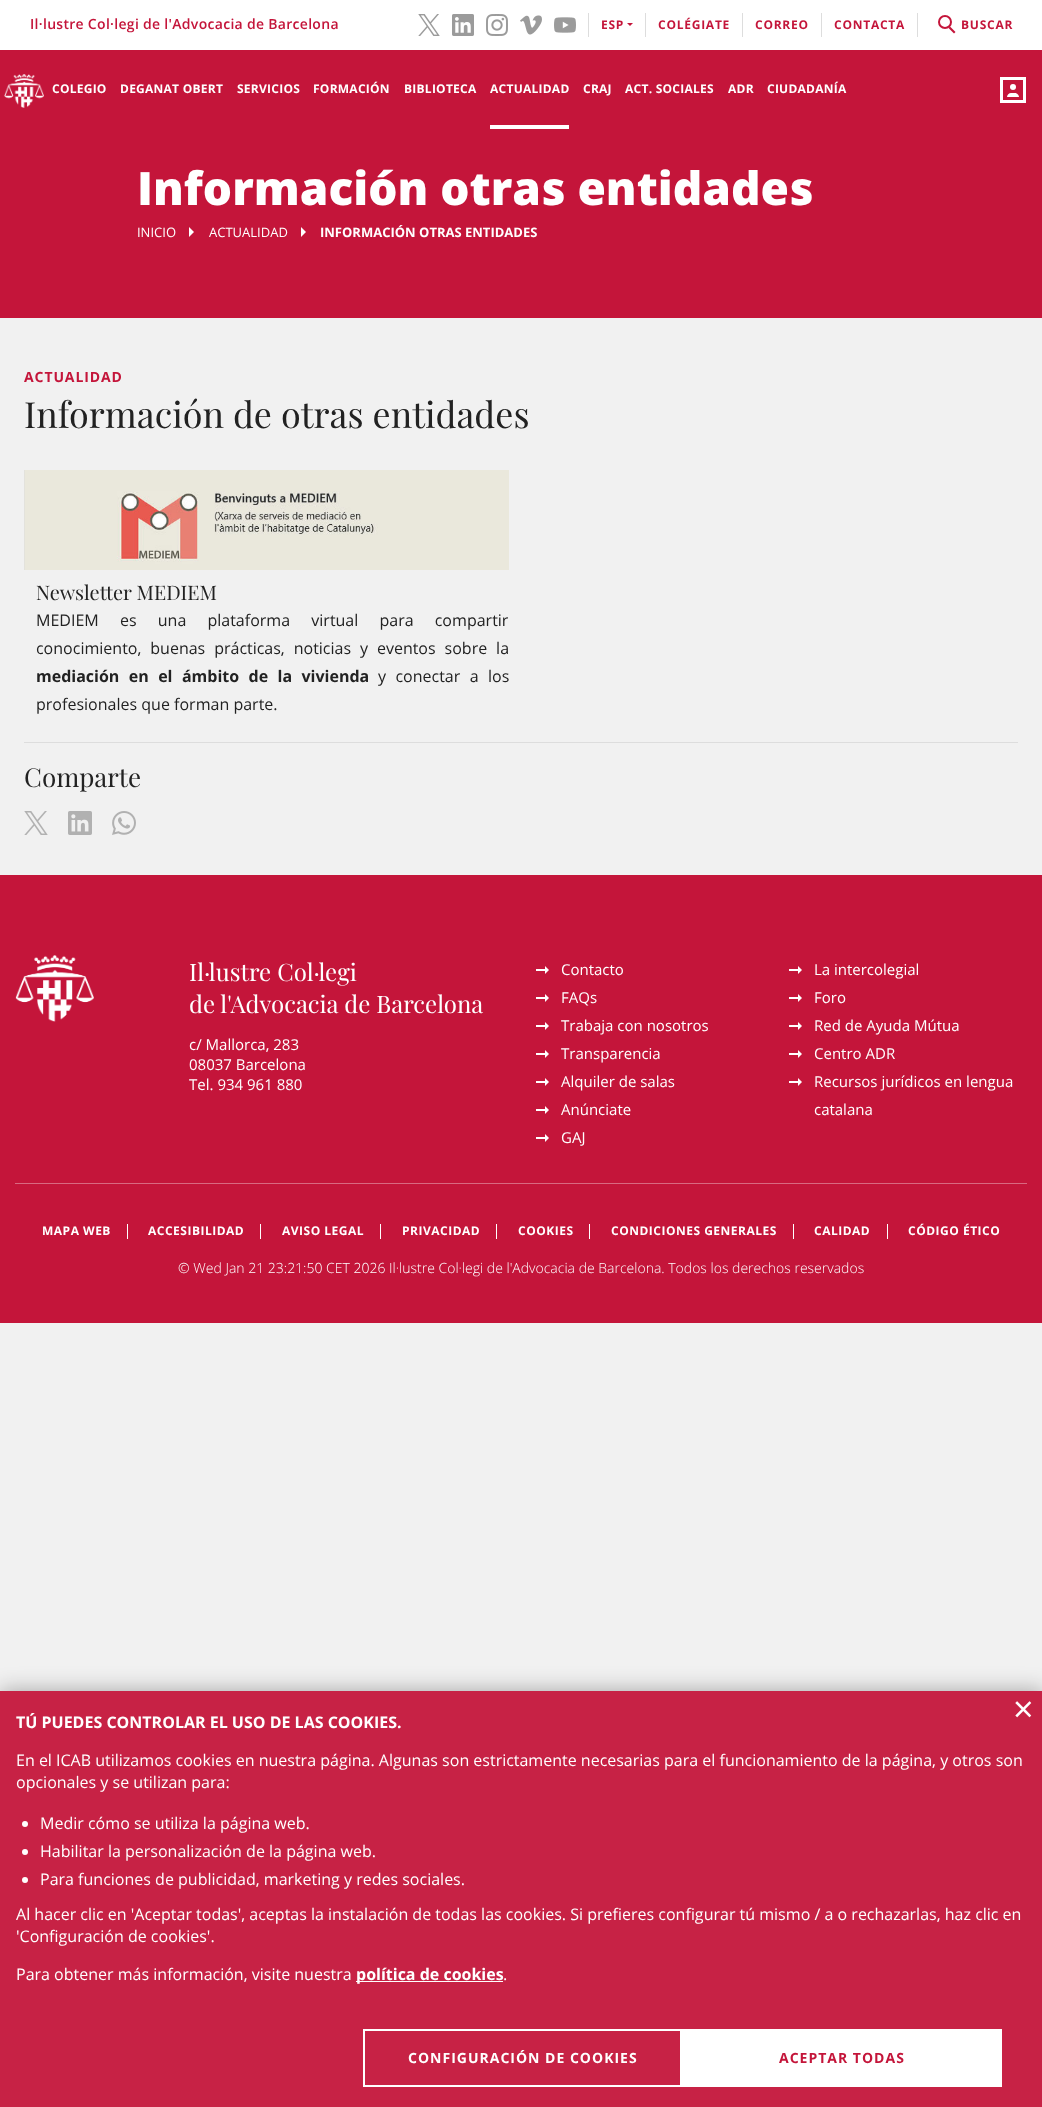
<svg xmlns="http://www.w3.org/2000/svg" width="1042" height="2107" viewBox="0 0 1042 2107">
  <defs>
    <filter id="blur1" x="-50%" y="-200%" width="200%" height="500%"><feGaussianBlur stdDeviation="10.5"/></filter>
  </defs>
  <rect width="100%" height="100%" fill="#f1f1f1"/>
  <rect x="0" y="50" width="1042" height="268" fill="#c4153a"/>
  <rect x="0" y="0" width="1042" height="50" fill="#ffffff"/>
  <text x="30" y="29" font-family="Open Sans" font-size="14" font-weight="600" letter-spacing="0.3" fill="#c4153a">Il·lustre Col·legi de l'Advocacia de Barcelona</text>
  <rect x="588" y="13" width="1" height="24" fill="#dddddd"/>
  <image x="418" y="14" width="22" height="22" href="img1.png"/>
  <image x="452" y="14" width="22" height="22" href="img2.png"/>
  <image x="486" y="14" width="22" height="22" href="img3.png"/>
  <image x="520" y="15" width="22" height="20" href="img4.png"/>
  <image x="554" y="17" width="22" height="16" href="img5.png"/>
  <rect x="645" y="13" width="1" height="24" fill="#dddddd"/>
  <text x="601" y="29" font-family="Open Sans" font-size="12" font-weight="bold" letter-spacing="0.75" fill="#c4153a">ESP</text>
  <path d="M627 23H633L630 26Z" fill="#c4153a"/>
  <rect x="742" y="13" width="1" height="24" fill="#dddddd"/>
  <text x="658" y="29" font-family="Open Sans" font-size="12" font-weight="bold" letter-spacing="0.75" fill="#c4153a">COLÉGIATE</text>
  <rect x="821" y="13" width="1" height="24" fill="#dddddd"/>
  <text x="755" y="29" font-family="Open Sans" font-size="12" font-weight="bold" letter-spacing="0.75" fill="#c4153a">CORREO</text>
  <rect x="917" y="13" width="1" height="24" fill="#dddddd"/>
  <text x="834" y="29" font-family="Open Sans" font-size="12" font-weight="bold" letter-spacing="0.75" fill="#c4153a">CONTACTA</text>
  <circle cx="945" cy="22" r="6" fill="none" stroke="#c4153a" stroke-width="2"/>
  <path d="M950 26.5L955.5 32L954 33.5L948.5 28Z" fill="#c4153a"/>
  <text x="961" y="29" font-family="Open Sans" font-size="12" font-weight="bold" letter-spacing="0.75" fill="#c4153a">BUSCAR</text>
  <image x="4" y="74" width="40" height="34" href="img6.png"/>
  <text x="52" y="93" font-family="Open Sans" font-size="12" font-weight="bold" letter-spacing="0.25" fill="#ffffff">COLEGIO</text>
  <text x="120" y="93" font-family="Open Sans" font-size="12" font-weight="bold" letter-spacing="0.25" fill="#ffffff">DEGANAT OBERT</text>
  <text x="237" y="93" font-family="Open Sans" font-size="12" font-weight="bold" letter-spacing="0.25" fill="#ffffff">SERVICIOS</text>
  <text x="313" y="93" font-family="Open Sans" font-size="12" font-weight="bold" letter-spacing="0.25" fill="#ffffff">FORMACIÓN</text>
  <text x="404" y="93" font-family="Open Sans" font-size="12" font-weight="bold" letter-spacing="0.25" fill="#ffffff">BIBLIOTECA</text>
  <text x="490" y="93" font-family="Open Sans" font-size="12" font-weight="bold" letter-spacing="0.25" fill="#ffffff">ACTUALIDAD</text>
  <rect x="490" y="125" width="79" height="4" fill="#ffffff"/>
  <text x="583" y="93" font-family="Open Sans" font-size="12" font-weight="bold" letter-spacing="0.25" fill="#ffffff">CRAJ</text>
  <text x="625" y="93" font-family="Open Sans" font-size="12" font-weight="bold" letter-spacing="0.25" fill="#ffffff">ACT. SOCIALES</text>
  <text x="728" y="93" font-family="Open Sans" font-size="12" font-weight="bold" letter-spacing="0.25" fill="#ffffff">ADR</text>
  <text x="767" y="93" font-family="Open Sans" font-size="12" font-weight="bold" letter-spacing="0.25" fill="#ffffff">CIUDADANÍA</text>
  <rect x="1001.5" y="78.5" width="23" height="23" fill="none" stroke="#ffffff" stroke-width="3"/>
  <circle cx="1013" cy="87" r="3" fill="#ffffff"/>
  <path d="M1011 93H1015C1017 93 1019 95 1019 97H1007C1007 95 1009 93 1011 93Z" fill="#ffffff"/>
  <text x="137" y="205" font-family="Open Sans" font-size="46" font-weight="800" fill="#ffffff">Información otras entidades</text>
  <text x="137" y="237" font-family="Open Sans" font-size="13" fill="#ffffff">INICIO</text>
  <path d="M189 237V227L194 232Z" fill="#ffffff"/>
  <text x="209" y="237" font-family="Open Sans" font-size="13" fill="#ffffff">ACTUALIDAD</text>
  <path d="M301 237V227L306 232Z" fill="#ffffff"/>
  <text x="320" y="237" font-family="Open Sans" font-size="13" font-weight="bold" fill="#ffffff">INFORMACIÓN OTRAS ENTIDADES</text>
  <text x="24" y="382" font-family="Open Sans" font-size="14" font-weight="bold" letter-spacing="0.9" fill="#c4153a">ACTUALIDAD</text>
  <text x="24" y="428" font-family="Playfair Display" font-size="36" fill="#222222">Información de otras entidades</text>
  <rect x="24" y="470" width="1" height="100" fill="#dddddd"/>
  <image x="24" y="470" width="485" height="100" href="img7.png"/>
  <text x="36" y="600" font-family="Playfair Display" font-size="20" fill="#222222">Newsletter MEDIEM</text>
  <text x="36" y="626" word-spacing="17" font-family="Open Sans" font-size="16" fill="#222222">MEDIEM es una plataforma virtual para compartir</text>
  <text x="36" y="654" word-spacing="4.75" font-family="Open Sans" font-size="16" fill="#222222">conocimiento, buenas prácticas, noticias y eventos sobre la</text>
  <text x="36" y="682" word-spacing="5.25" font-family="Open Sans" font-size="16" font-weight="bold" fill="#222222">mediación en el ámbito de la vivienda</text>
  <text x="378" y="682" word-spacing="5.25" font-family="Open Sans" font-size="16" fill="#222222">y conectar a los</text>
  <text x="36" y="710" font-family="Open Sans" font-size="16" fill="#222222">profesionales que forman parte.</text>
  <rect x="24" y="742" width="994" height="1" fill="#dddddd"/>
  <text x="24" y="787" font-family="Playfair Display" font-size="26" fill="#222222">Comparte</text>
  <image x="24" y="811" width="24" height="24" href="img8.png"/>
  <image x="68" y="811" width="24" height="24" href="img9.png"/>
  <image x="112" y="811" width="24" height="24" href="img10.png"/>
  <rect x="0" y="875" width="1042" height="448" fill="#c4153a"/>
  <image x="15" y="955" width="79" height="67" href="img11.png"/>
  <text x="189" y="981" font-family="Playfair Display" font-size="24" fill="#ffffff">Il·lustre Col·legi</text>
  <text x="189" y="1013" font-family="Playfair Display" font-size="24" fill="#ffffff">de l'Advocacia de Barcelona</text>
  <text x="189" y="1050" font-family="Open Sans" font-size="15" fill="#ffffff">c/ Mallorca, 283</text>
  <text x="189" y="1070" font-family="Open Sans" font-size="15" fill="#ffffff">08037 Barcelona</text>
  <text x="189" y="1090" font-family="Open Sans" font-size="15" fill="#ffffff">Tel. 934 961 880</text>
  <path d="M545 974V966L549 970Z" fill="#ffffff"/>
  <text x="561" y="975" font-family="Open Sans" font-size="15" fill="#ffffff">Contacto</text>
  <rect x="536" y="969" width="11" height="2" fill="#ffffff"/>
  <path d="M798 974V966L802 970Z" fill="#ffffff"/>
  <text x="814" y="975" font-family="Open Sans" font-size="15" fill="#ffffff">La intercolegial</text>
  <rect x="789" y="969" width="11" height="2" fill="#ffffff"/>
  <path d="M545 1002V994L549 998Z" fill="#ffffff"/>
  <text x="561" y="1003" font-family="Open Sans" font-size="15" fill="#ffffff">FAQs</text>
  <rect x="536" y="997" width="11" height="2" fill="#ffffff"/>
  <path d="M798 1002V994L802 998Z" fill="#ffffff"/>
  <text x="814" y="1003" font-family="Open Sans" font-size="15" fill="#ffffff">Foro</text>
  <rect x="789" y="997" width="11" height="2" fill="#ffffff"/>
  <path d="M545 1030V1022L549 1026Z" fill="#ffffff"/>
  <text x="561" y="1031" font-family="Open Sans" font-size="15" fill="#ffffff">Trabaja con nosotros</text>
  <rect x="536" y="1025" width="11" height="2" fill="#ffffff"/>
  <path d="M798 1030V1022L802 1026Z" fill="#ffffff"/>
  <text x="814" y="1031" font-family="Open Sans" font-size="15" fill="#ffffff">Red de Ayuda Mútua</text>
  <rect x="789" y="1025" width="11" height="2" fill="#ffffff"/>
  <path d="M545 1058V1050L549 1054Z" fill="#ffffff"/>
  <text x="561" y="1059" font-family="Open Sans" font-size="15" fill="#ffffff">Transparencia</text>
  <rect x="536" y="1053" width="11" height="2" fill="#ffffff"/>
  <path d="M798 1058V1050L802 1054Z" fill="#ffffff"/>
  <text x="814" y="1059" font-family="Open Sans" font-size="15" fill="#ffffff">Centro ADR</text>
  <rect x="789" y="1053" width="11" height="2" fill="#ffffff"/>
  <path d="M545 1086V1078L549 1082Z" fill="#ffffff"/>
  <text x="561" y="1087" font-family="Open Sans" font-size="15" fill="#ffffff">Alquiler de salas</text>
  <rect x="536" y="1081" width="11" height="2" fill="#ffffff"/>
  <path d="M798 1086V1078L802 1082Z" fill="#ffffff"/>
  <text x="814" y="1087" font-family="Open Sans" font-size="15" fill="#ffffff">Recursos jurídicos en lengua</text>
  <rect x="789" y="1081" width="11" height="2" fill="#ffffff"/>
  <text x="814" y="1115" font-family="Open Sans" font-size="15" fill="#ffffff">catalana</text>
  <path d="M545 1114V1106L549 1110Z" fill="#ffffff"/>
  <text x="561" y="1115" font-family="Open Sans" font-size="15" fill="#ffffff">Anúnciate</text>
  <rect x="536" y="1109" width="11" height="2" fill="#ffffff"/>
  <path d="M545 1142V1134L549 1138Z" fill="#ffffff"/>
  <text x="561" y="1143" font-family="Open Sans" font-size="15" fill="#ffffff">GAJ</text>
  <rect x="536" y="1137" width="11" height="2" fill="#ffffff"/>
  <rect x="15" y="1183" width="1012" height="1" fill="#d96981"/>
  <text x="42" y="1235" font-family="Open Sans" font-size="12" font-weight="bold" letter-spacing="0.5" fill="#ffffff">MAPA WEB</text>
  <rect x="127" y="1224" width="1" height="15" fill="#ffffff"/>
  <text x="148" y="1235" font-family="Open Sans" font-size="12" font-weight="bold" letter-spacing="0.5" fill="#ffffff">ACCESIBILIDAD</text>
  <rect x="260" y="1224" width="1" height="15" fill="#ffffff"/>
  <text x="282" y="1235" font-family="Open Sans" font-size="12" font-weight="bold" letter-spacing="0.5" fill="#ffffff">AVISO LEGAL</text>
  <rect x="380" y="1224" width="1" height="15" fill="#ffffff"/>
  <text x="402" y="1235" font-family="Open Sans" font-size="12" font-weight="bold" letter-spacing="0.5" fill="#ffffff">PRIVACIDAD</text>
  <rect x="496" y="1224" width="1" height="15" fill="#ffffff"/>
  <text x="518" y="1235" font-family="Open Sans" font-size="12" font-weight="bold" letter-spacing="0.5" fill="#ffffff">COOKIES</text>
  <rect x="589" y="1224" width="1" height="15" fill="#ffffff"/>
  <text x="611" y="1235" font-family="Open Sans" font-size="12" font-weight="bold" letter-spacing="0.5" fill="#ffffff">CONDICIONES GENERALES</text>
  <rect x="793" y="1224" width="1" height="15" fill="#ffffff"/>
  <text x="814" y="1235" font-family="Open Sans" font-size="12" font-weight="bold" letter-spacing="0.5" fill="#ffffff">CALIDAD</text>
  <rect x="887" y="1224" width="1" height="15" fill="#ffffff"/>
  <text x="908" y="1235" font-family="Open Sans" font-size="12" font-weight="bold" letter-spacing="0.5" fill="#ffffff">CÓDIGO ÉTICO</text>
  <text x="178" y="1273" font-family="Open Sans" font-size="14" font-weight="300" fill="#ffffff">© Wed Jan 21 23:21:50 CET 2026 Il·lustre Col·legi de l'Advocacia de Barcelona. Todos los derechos reservados</text>
  <rect x="0" y="1690" width="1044" height="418" fill="#000000" fill-opacity="0.3" filter="url(#blur1)"/>
  <rect x="0" y="1691" width="1042" height="416" fill="#c72245"/>
  <text x="1013" y="1722" font-family="Open Sans" font-size="36" fill="#ffffff">×</text>
  <text x="16" y="1728" font-family="Open Sans" font-size="16" font-weight="bold" fill="#ffffff">TÚ PUEDES CONTROLAR EL USO DE LAS COOKIES.</text>
  <text x="16" y="1766" font-family="Open Sans" font-size="16" fill="#ffffff">En el ICAB utilizamos cookies en nuestra página. Algunas son estrictamente necesarias para el funcionamiento de la página, y otros son</text>
  <text x="16" y="1788" font-family="Open Sans" font-size="16" fill="#ffffff">opcionales y se utilizan para:</text>
  <circle cx="25" cy="1824" r="3" fill="#ffffff"/>
  <text x="40" y="1829" font-family="Open Sans" font-size="16" fill="#ffffff">Medir cómo se utiliza la página web.</text>
  <circle cx="25" cy="1852" r="3" fill="#ffffff"/>
  <text x="40" y="1857" font-family="Open Sans" font-size="16" fill="#ffffff">Habilitar la personalización de la página web.</text>
  <circle cx="25" cy="1880" r="3" fill="#ffffff"/>
  <text x="40" y="1885" font-family="Open Sans" font-size="16" fill="#ffffff">Para funciones de publicidad, marketing y redes sociales.</text>
  <text x="16" y="1920" font-family="Open Sans" font-size="16" fill="#ffffff">Al hacer clic en 'Aceptar todas', aceptas la instalación de todas las cookies. Si prefieres configurar tú mismo / a o rechazarlas, haz clic en</text>
  <text x="16" y="1942" font-family="Open Sans" font-size="16" fill="#ffffff">'Configuración de cookies'.</text>
  <text x="16" y="1980" font-family="Open Sans" font-size="16" fill="#ffffff">Para obtener más información, visite nuestra</text>
  <rect x="356" y="1981" width="147" height="1" fill="#ffffff"/>
  <text x="356" y="1980" font-family="Open Sans" font-size="16" font-weight="bold" fill="#ffffff">política de cookies</text>
  <text x="503" y="1980" font-family="Open Sans" font-size="16" fill="#ffffff">.</text>
  <rect x="364" y="2030" width="317" height="56" fill="none" stroke="#ffffff" stroke-width="2"/>
  <text x="408" y="2063" font-family="Open Sans" font-size="14" font-weight="bold" letter-spacing="1" fill="#ffffff">CONFIGURACIÓN DE COOKIES</text>
  <rect x="682" y="2029" width="320" height="58" fill="#ffffff"/>
  <text x="779" y="2063" font-family="Open Sans" font-size="14" font-weight="bold" letter-spacing="1" fill="#c4153a">ACEPTAR TODAS</text>
</svg>
